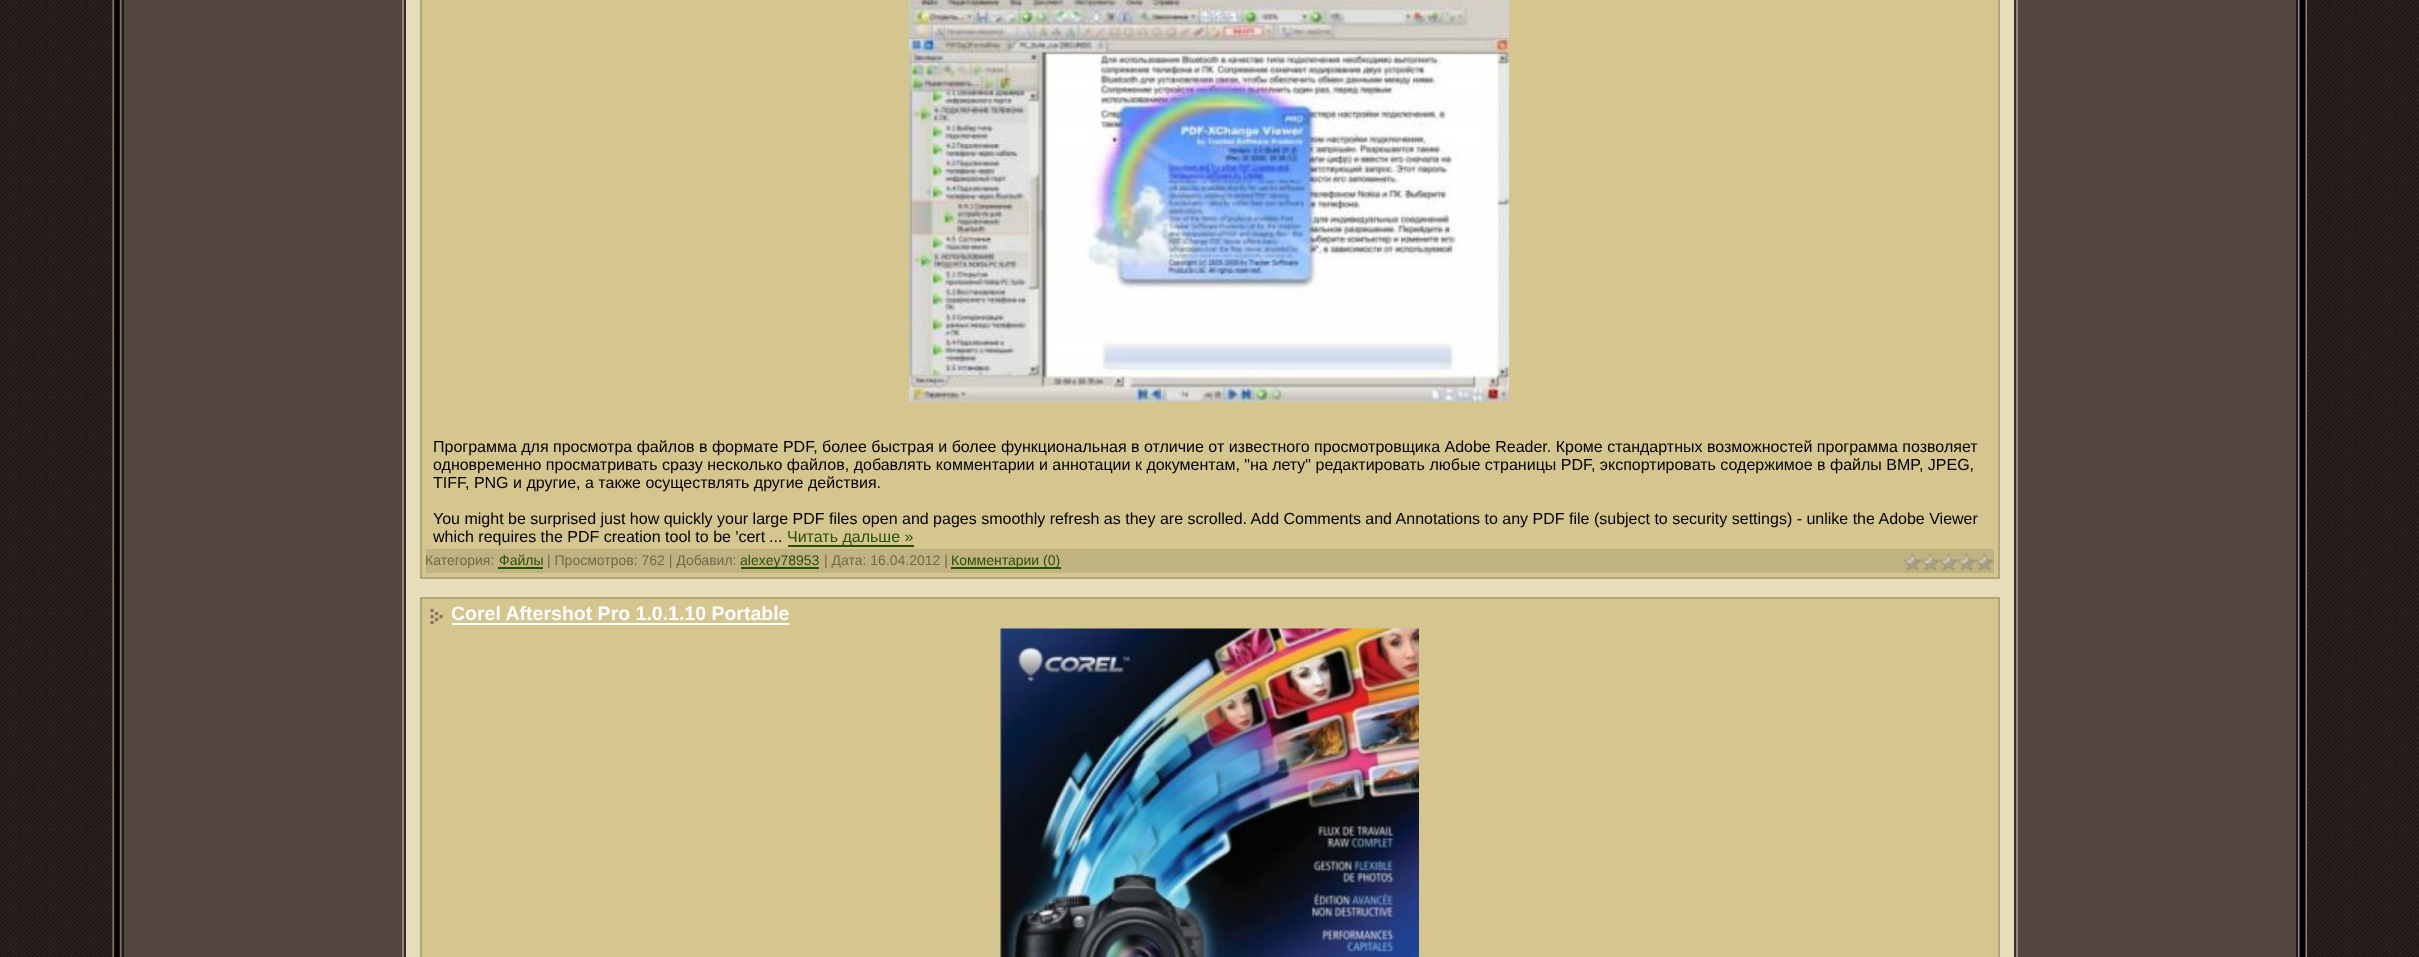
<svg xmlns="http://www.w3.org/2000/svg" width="2419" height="957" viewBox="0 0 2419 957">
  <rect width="100%" height="100%" fill="#ffffff"/>
  <image x="0" y="0" width="2419" height="957" href="img1.png"/>
  <image x="112" y="0" width="10" height="957" href="img2.png"/>
  <rect x="123" y="-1" width="2174" height="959" fill="#534640" stroke="#1a1a1a" stroke-width="2"/>
  <rect x="403" y="-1" width="1614" height="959" fill="none" stroke="#988675" stroke-width="2"/>
  <rect x="405" y="-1" width="1610" height="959" fill="#e7ddbb" stroke="#352e2c" stroke-width="2"/>
  <rect x="421" y="-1" width="1578" height="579" fill="#d5c58f" stroke="#b2a578" stroke-width="2"/>
  <image x="909" y="0" width="600" height="402" href="img3.png"/>
  <text x="433" y="452" font-family="Liberation Sans" font-size="16" fill="#000000">Программа для просмотра файлов в формате PDF, более быстрая и более функциональная в отличие от известного просмотровщика Adobe Reader. Кроме стандартных возможностей программа позволяет</text>
  <text x="433" y="470" font-family="Liberation Sans" font-size="16" fill="#000000">одновременно просматривать сразу несколько файлов, добавлять комментарии и аннотации к документам, "на лету" редактировать любые страницы PDF, экспортировать содержимое в файлы BMP, JPEG,</text>
  <text x="433" y="488" font-family="Liberation Sans" font-size="16" fill="#000000">TIFF, PNG и другие, а также осуществлять другие действия.</text>
  <text x="433" y="524" font-family="Liberation Sans" font-size="16" fill="#000000">You might be surprised just how quickly your large PDF files open and pages smoothly refresh as they are scrolled. Add Comments and Annotations to any PDF file (subject to security settings) - unlike the Adobe Viewer</text>
  <text x="433" y="542" font-family="Liberation Sans" font-size="16" fill="#000000">which requires the PDF creation tool to be 'cert</text>
  <text x="769" y="542" font-family="Liberation Sans" font-size="16" fill="#000000">...</text>
  <rect x="788" y="545" width="126" height="2" fill="#295103"/>
  <text x="787" y="542" font-family="Liberation Sans" font-size="16" fill="#295103">Читать дальше »</text>
  <rect x="426" y="549" width="1568" height="24" fill="#c0b281"/>
  <text x="425" y="565" font-family="Liberation Sans" font-size="14" fill="#756746">Категория:</text>
  <text x="499" y="565" font-family="Liberation Sans" font-size="14" fill="#295103">Файлы</text>
  <rect x="498" y="567" width="45" height="2" fill="#295103"/>
  <text x="547" y="565" font-family="Liberation Sans" font-size="14" fill="#756746">| Просмотров: 762 | Добавил:</text>
  <rect x="741" y="567" width="78" height="2" fill="#295103"/>
  <text x="740" y="565" font-family="Liberation Sans" font-size="14" fill="#295103">alexey78953</text>
  <text x="824" y="565" font-family="Liberation Sans" font-size="14" fill="#756746">| Дата: 16.04.2012 |</text>
  <rect x="951" y="567" width="110" height="2" fill="#295103"/>
  <text x="951" y="565" font-family="Liberation Sans" font-size="14" fill="#295103">Комментарии (0)</text>
  <image x="1903" y="553" width="91" height="19" href="img4.png"/>
  <rect x="421" y="598" width="1578" height="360" fill="#d5c58f" stroke="#b2a578" stroke-width="2"/>
  <image x="430" y="608" width="13" height="17" href="img5.png"/>
  <text x="451" y="620" font-family="Liberation Sans" font-size="19.5" font-weight="bold" fill="#ffffff">Corel Aftershot Pro 1.0.1.10 Portable</text>
  <rect x="452" y="623" width="337" height="2" fill="#ffffff"/>
  <image x="1000" y="628" width="419" height="329" href="img6.png"/>
  <image x="2298" y="0" width="9" height="957" href="img7.png"/>
</svg>
